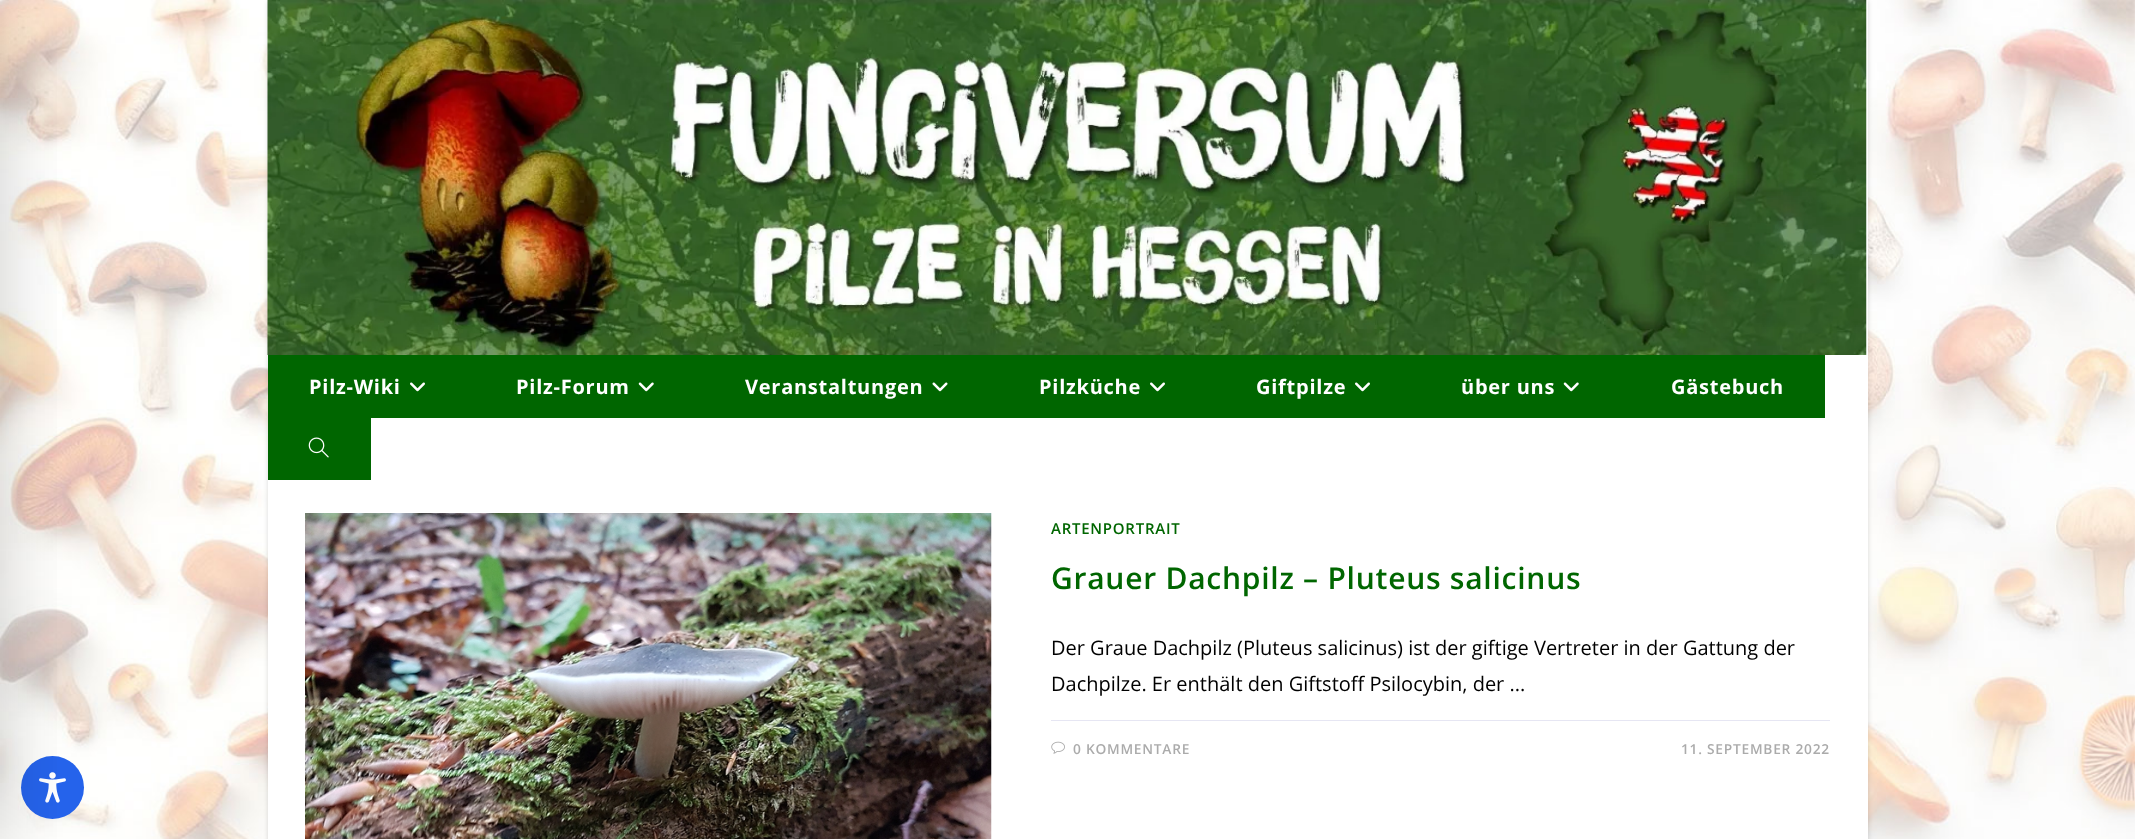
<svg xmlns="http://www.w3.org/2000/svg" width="2135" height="839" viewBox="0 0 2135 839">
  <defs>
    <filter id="blur1" x="-50%" y="-200%" width="200%" height="500%"><feGaussianBlur stdDeviation="37.5"/></filter>
    <filter id="blur2" x="-50%" y="-200%" width="200%" height="500%"><feGaussianBlur stdDeviation="2.5"/></filter>
  </defs>
  <rect width="100%" height="100%" fill="#ffffff"/>
  <image x="0" y="0" width="2135" height="839" href="img1.png"/>
  <circle cx="52.5" cy="787.5" r="31.5" fill="#2563eb"/>
  <image x="39" y="772" width="27" height="31" href="img9.png"/>
  <rect x="-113" y="13" width="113" height="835" fill="#000000" fill-opacity="0.2" filter="url(#blur1)"/>
  <rect x="268" y="1" width="1600" height="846" fill="#000000" fill-opacity="0.15" filter="url(#blur2)"/>
  <rect x="268" y="0" width="1600" height="839" fill="#ffffff"/>
  <image x="267" y="0" width="1600" height="355" href="img2.png"/>
  <rect x="268" y="355" width="1557" height="63" fill="#006600"/>
  <text x="309" y="394" font-family="Open Sans" font-size="20" font-weight="bold" letter-spacing="0.75" fill="#ffffff">Pilz-Wiki</text>
  <image x="410" y="382" width="15" height="10" href="img3.png"/>
  <text x="516" y="394" font-family="Open Sans" font-size="20" font-weight="bold" letter-spacing="0.75" fill="#ffffff">Pilz-Forum</text>
  <image x="638" y="382" width="16" height="10" href="img4.png"/>
  <text x="745" y="394" font-family="Open Sans" font-size="20" font-weight="bold" letter-spacing="0.75" fill="#ffffff">Veranstaltungen</text>
  <image x="932" y="382" width="16" height="10" href="img5.png"/>
  <text x="1039" y="394" font-family="Open Sans" font-size="20" font-weight="bold" letter-spacing="0.75" fill="#ffffff">Pilzküche</text>
  <image x="1150" y="382" width="15" height="10" href="img3.png"/>
  <text x="1256" y="394" font-family="Open Sans" font-size="20" font-weight="bold" letter-spacing="0.75" fill="#ffffff">Giftpilze</text>
  <image x="1355" y="382" width="15" height="10" href="img3.png"/>
  <text x="1461" y="394" font-family="Open Sans" font-size="20" font-weight="bold" letter-spacing="0.75" fill="#ffffff">über uns</text>
  <image x="1563" y="382" width="16" height="10" href="img4.png"/>
  <text x="1671" y="394" font-family="Open Sans" font-size="20" font-weight="bold" letter-spacing="0.75" fill="#ffffff">Gästebuch</text>
  <rect x="268" y="418" width="103" height="62" fill="#006600"/>
  <image x="308" y="437" width="21" height="21" href="img6.png"/>
  <image x="305" y="513" width="687" height="326" href="img7.png"/>
  <text x="1051" y="534" font-family="Open Sans" font-size="15" font-weight="600" letter-spacing="0.75" fill="#006600">ARTENPORTRAIT</text>
  <text x="1051" y="589" font-family="Open Sans" font-size="30" font-weight="600" letter-spacing="0.75" fill="#006600">Grauer Dachpilz – Pluteus salicinus</text>
  <text x="1051" y="655" font-family="Open Sans" font-size="20" fill="#000000">Der Graue Dachpilz (Pluteus salicinus) ist der giftige Vertreter in der Gattung der</text>
  <text x="1051" y="691" font-family="Open Sans" font-size="20" fill="#000000">Dachpilze. Er enthält den Giftstoff Psilocybin, der ...</text>
  <rect x="1051" y="720" width="779" height="1" fill="#e6e6f3"/>
  <image x="1051" y="741" width="14" height="13" href="img8.png"/>
  <text x="1073" y="754" font-family="Open Sans" font-size="13.75" font-weight="600" letter-spacing="0.75" fill="#ababab">0 KOMMENTARE</text>
  <text x="1681" y="754" font-family="Open Sans" font-size="13.75" font-weight="600" letter-spacing="0.75" fill="#ababab">11. SEPTEMBER 2022</text>
</svg>
